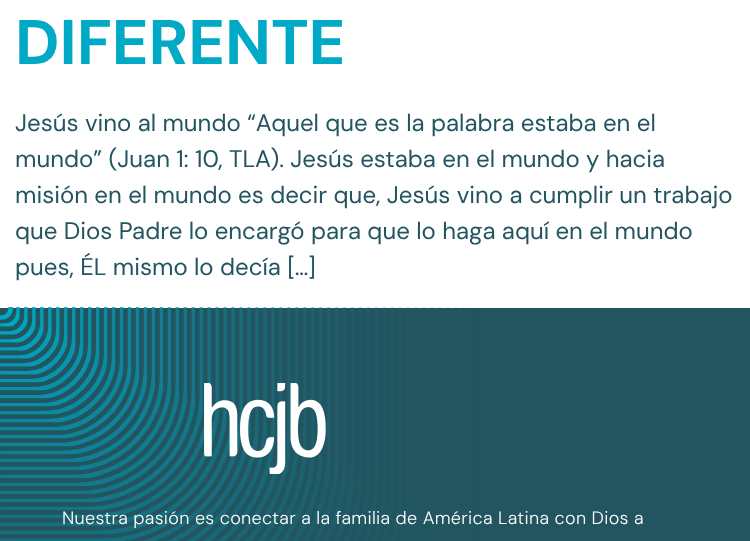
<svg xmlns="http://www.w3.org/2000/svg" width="750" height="541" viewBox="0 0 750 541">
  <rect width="100%" height="100%" fill="#ffffff"/>
  <text x="15" y="64" font-family="DM Sans" font-size="63" font-weight="bold" fill="#00aac6">DIFERENTE</text>
  <text x="15" y="131" font-family="DM Sans" font-size="24" fill="#225560">Jesús vino al mundo “Aquel que es la palabra estaba en el</text>
  <text x="15" y="167" font-family="DM Sans" font-size="24" fill="#225560">mundo” (Juan 1: 10, TLA). Jesús estaba en el mundo y hacia</text>
  <text x="15" y="203" font-family="DM Sans" font-size="24" fill="#225560">misión en el mundo es decir que, Jesús vino a cumplir un trabajo</text>
  <text x="15" y="239" font-family="DM Sans" font-size="24" fill="#225560">que Dios Padre lo encargó para que lo haga aquí en el mundo</text>
  <text x="15" y="275" font-family="DM Sans" font-size="24" fill="#225560">pues, ÉL mismo lo decía […]</text>
  <rect x="0" y="308" width="750" height="233" fill="#225560"/>
  <image x="0" y="307" width="481" height="234" href="img1.png"/>
  <image x="204" y="383" width="122" height="91" href="img2.png"/>
  <text x="62" y="524" font-family="DM Sans" font-size="18" font-weight="300" letter-spacing="0.3" fill="#ffffff">Nuestra pasión es conectar a la familia de América Latina con Dios a</text>
</svg>
